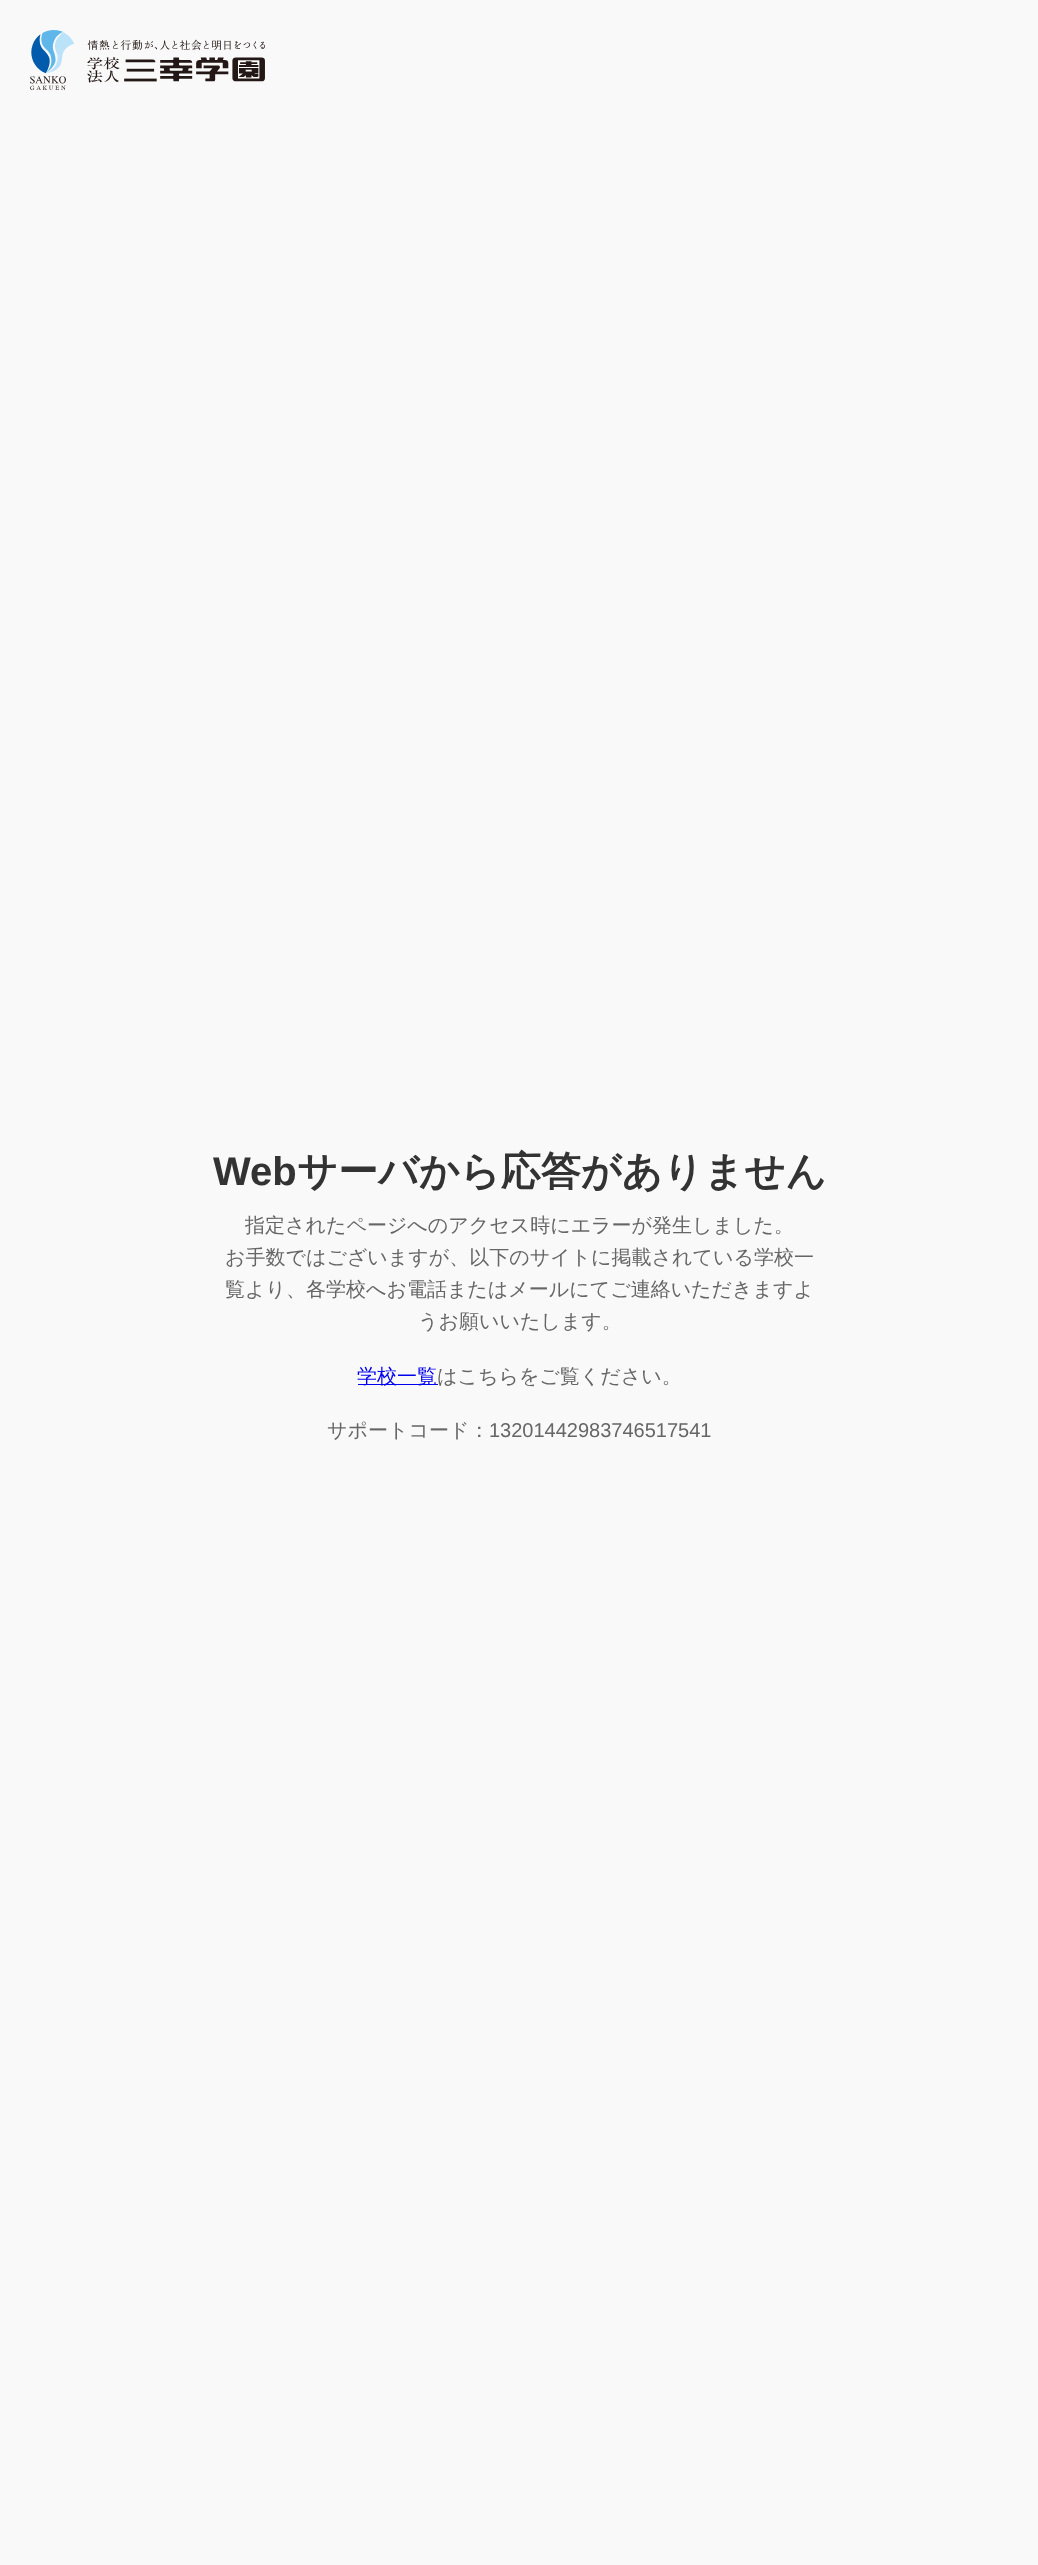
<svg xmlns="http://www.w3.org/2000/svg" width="1038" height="2565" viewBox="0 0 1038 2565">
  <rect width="100%" height="100%" fill="#f9f9f9"/>
  <image x="30" y="30" width="235" height="60" href="img1.png"/>
  <text x="213" y="1185" font-family="Liberation Sans" font-size="40" font-weight="bold" fill="#333333">Web</text>
  <text x="297" y="1185" font-family="WenQuanYi Zen Hei" font-size="40" font-weight="bold" fill="#333333">サーバから応答がありません</text>
  <text x="245" y="1232" font-family="WenQuanYi Zen Hei" font-size="20" font-weight="500" fill="#666666">指定されたページへのアクセス時にエラーが発生しました。</text>
  <text x="225" y="1264" font-family="WenQuanYi Zen Hei" font-size="20" font-weight="500" fill="#666666">お手数ではございますが、以下のサイトに掲載されている学校一</text>
  <text x="225" y="1296" font-family="WenQuanYi Zen Hei" font-size="20" font-weight="500" fill="#666666">覧より、各学校へお電話またはメールにてご連絡いただきますよ</text>
  <text x="418" y="1328" font-family="WenQuanYi Zen Hei" font-size="20" font-weight="500" fill="#666666">うお願いいたします。</text>
  <rect x="358" y="1384" width="80" height="1" fill="#0000ee"/>
  <text x="357" y="1383" font-family="WenQuanYi Zen Hei" font-size="20" font-weight="500" fill="#0000ee">学校一覧</text>
  <text x="437" y="1383" font-family="WenQuanYi Zen Hei" font-size="20" font-weight="500" fill="#666666">はこちらをご覧ください。</text>
  <text x="327" y="1437" font-family="WenQuanYi Zen Hei" font-size="20" font-weight="500" fill="#666666">サポートコード：</text>
  <text x="489" y="1437" font-family="Liberation Sans" font-size="20" fill="#666666">13201442983746517541</text>
</svg>
